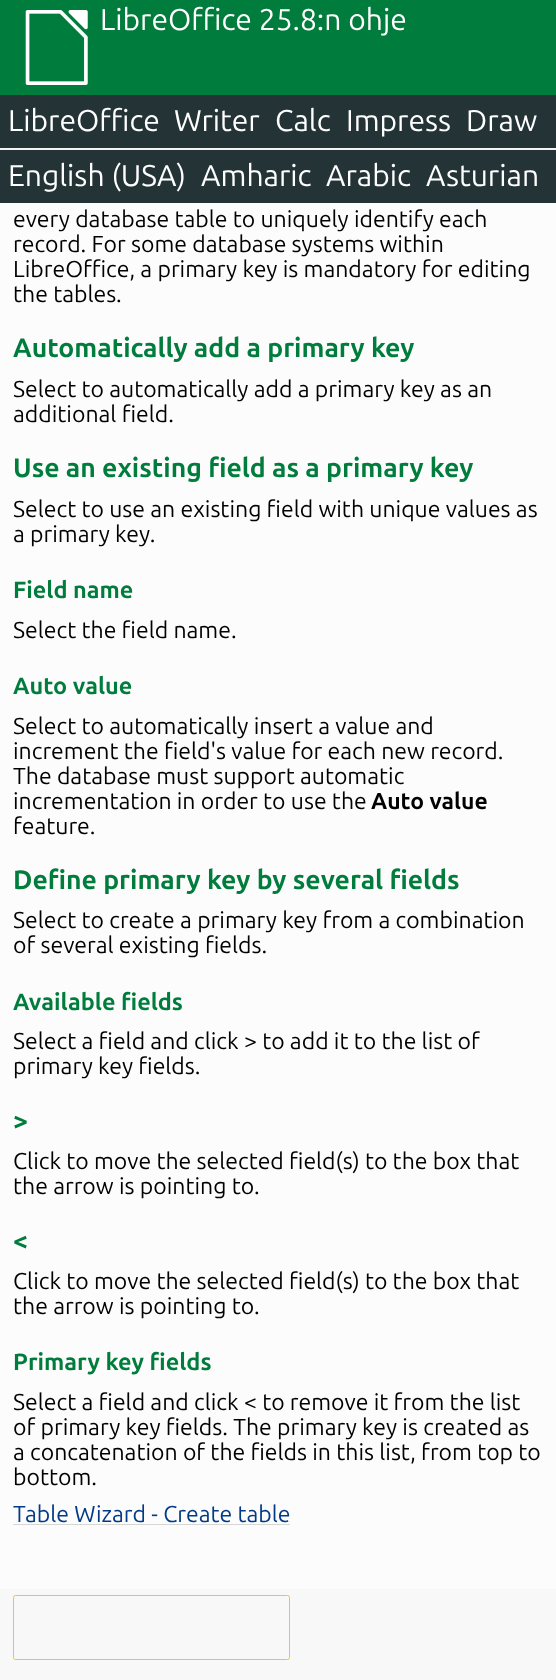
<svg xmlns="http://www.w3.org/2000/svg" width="556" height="1680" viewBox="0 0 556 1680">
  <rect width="100%" height="100%" fill="#f7f8f7"/>
  <rect x="0" y="0" width="556" height="95" fill="#007c3c"/>
  <image x="25" y="10" width="63" height="75" href="img1.png"/>
  <text x="100" y="30" font-family="Ubuntu" font-size="30" fill="#ffffff">LibreOffice 25.8:n ohje</text>
  <rect x="0" y="95" width="556" height="53" fill="#233336"/>
  <rect x="0" y="148" width="556" height="2" fill="#f3f3f3"/>
  <text x="8" y="131" font-family="Ubuntu" font-size="30" fill="#ffffff">LibreOffice</text>
  <text x="174" y="131" font-family="Ubuntu" font-size="30" fill="#ffffff">Writer</text>
  <text x="275" y="131" font-family="Ubuntu" font-size="30" fill="#ffffff">Calc</text>
  <text x="346" y="131" font-family="Ubuntu" font-size="30" fill="#ffffff">Impress</text>
  <text x="466" y="131" font-family="Ubuntu" font-size="30" fill="#ffffff">Draw</text>
  <rect x="0" y="150" width="556" height="53" fill="#233336"/>
  <text x="8" y="186" font-family="Ubuntu" font-size="30" fill="#ffffff">English (USA)</text>
  <text x="201" y="186" font-family="Ubuntu" font-size="30" fill="#ffffff">Amharic</text>
  <text x="326" y="186" font-family="Ubuntu" font-size="30" fill="#ffffff">Arabic</text>
  <text x="426" y="186" font-family="Ubuntu" font-size="30" fill="#ffffff">Asturian</text>
  <rect x="0" y="203" width="556" height="1386" fill="#fcfcfc"/>
  <text x="13" y="227" font-family="Ubuntu" font-size="23" fill="#000000">every database table to uniquely identify each</text>
  <text x="13" y="252" font-family="Ubuntu" font-size="23" fill="#000000">record. For some database systems within</text>
  <text x="13" y="277" font-family="Ubuntu" font-size="23" fill="#000000">LibreOffice, a primary key is mandatory for editing</text>
  <text x="13" y="302" font-family="Ubuntu" font-size="23" fill="#000000">the tables.</text>
  <text x="13" y="357" font-family="Ubuntu" font-size="26.6" font-weight="bold" fill="#007c3c">Automatically add a primary key</text>
  <text x="13" y="397" font-family="Ubuntu" font-size="23" fill="#000000">Select to automatically add a primary key as an</text>
  <text x="13" y="422" font-family="Ubuntu" font-size="23" fill="#000000">additional field.</text>
  <text x="13" y="477" font-family="Ubuntu" font-size="26.6" font-weight="bold" fill="#007c3c">Use an existing field as a primary key</text>
  <text x="13" y="517" font-family="Ubuntu" font-size="23" fill="#000000">Select to use an existing field with unique values as</text>
  <text x="13" y="542" font-family="Ubuntu" font-size="23" fill="#000000">a primary key.</text>
  <text x="13" y="598" font-family="Ubuntu" font-size="23.5" font-weight="bold" fill="#007c3c">Field name</text>
  <text x="13" y="638" font-family="Ubuntu" font-size="23" fill="#000000">Select the field name.</text>
  <text x="13" y="694" font-family="Ubuntu" font-size="23.5" font-weight="bold" fill="#007c3c">Auto value</text>
  <text x="13" y="734" font-family="Ubuntu" font-size="23" fill="#000000">Select to automatically insert a value and</text>
  <text x="13" y="759" font-family="Ubuntu" font-size="23" fill="#000000">increment the field's value for each new record.</text>
  <text x="13" y="784" font-family="Ubuntu" font-size="23" fill="#000000">The database must support automatic</text>
  <text x="13" y="809" font-family="Ubuntu" font-size="23" fill="#000000">incrementation in order to use the</text>
  <text x="371" y="809" font-family="Ubuntu" font-size="23" font-weight="bold" fill="#000000">Auto value</text>
  <text x="13" y="834" font-family="Ubuntu" font-size="23" fill="#000000">feature.</text>
  <text x="13" y="889" font-family="Ubuntu" font-size="26.6" font-weight="bold" fill="#007c3c">Define primary key by several fields</text>
  <text x="13" y="928" font-family="Ubuntu" font-size="23" fill="#000000">Select to create a primary key from a combination</text>
  <text x="13" y="953" font-family="Ubuntu" font-size="23" fill="#000000">of several existing fields.</text>
  <text x="13" y="1010" font-family="Ubuntu" font-size="23.5" font-weight="bold" fill="#007c3c">Available fields</text>
  <text x="13" y="1049" font-family="Ubuntu" font-size="23" fill="#000000">Select a field and click &gt; to add it to the list of</text>
  <text x="13" y="1074" font-family="Ubuntu" font-size="23" fill="#000000">primary key fields.</text>
  <text x="13" y="1130" font-family="Ubuntu" font-size="26.6" font-weight="bold" fill="#007c3c">&gt;</text>
  <text x="13" y="1169" font-family="Ubuntu" font-size="23" fill="#000000">Click to move the selected field(s) to the box that</text>
  <text x="13" y="1194" font-family="Ubuntu" font-size="23" fill="#000000">the arrow is pointing to.</text>
  <text x="13" y="1250" font-family="Ubuntu" font-size="26.6" font-weight="bold" fill="#007c3c">&lt;</text>
  <text x="13" y="1289" font-family="Ubuntu" font-size="23" fill="#000000">Click to move the selected field(s) to the box that</text>
  <text x="13" y="1314" font-family="Ubuntu" font-size="23" fill="#000000">the arrow is pointing to.</text>
  <text x="13" y="1370" font-family="Ubuntu" font-size="23.5" font-weight="bold" fill="#007c3c">Primary key fields</text>
  <text x="13" y="1410" font-family="Ubuntu" font-size="23" fill="#000000">Select a field and click &lt; to remove it from the list</text>
  <text x="13" y="1435" font-family="Ubuntu" font-size="23" fill="#000000">of primary key fields. The primary key is created as</text>
  <text x="13" y="1460" font-family="Ubuntu" font-size="23" fill="#000000">a concatenation of the fields in this list, from top to</text>
  <text x="13" y="1485" font-family="Ubuntu" font-size="23" fill="#000000">bottom.</text>
  <text x="13" y="1522" font-family="Ubuntu" font-size="23" fill="#023a86">Table Wizard - Create table</text>
  <rect x="13" y="1524" width="277" height="1" fill="#d6d6d6"/>
  <rect x="13.5" y="1595.5" width="276" height="64" rx="2" fill="none" stroke="#f1c62a"/>
</svg>
